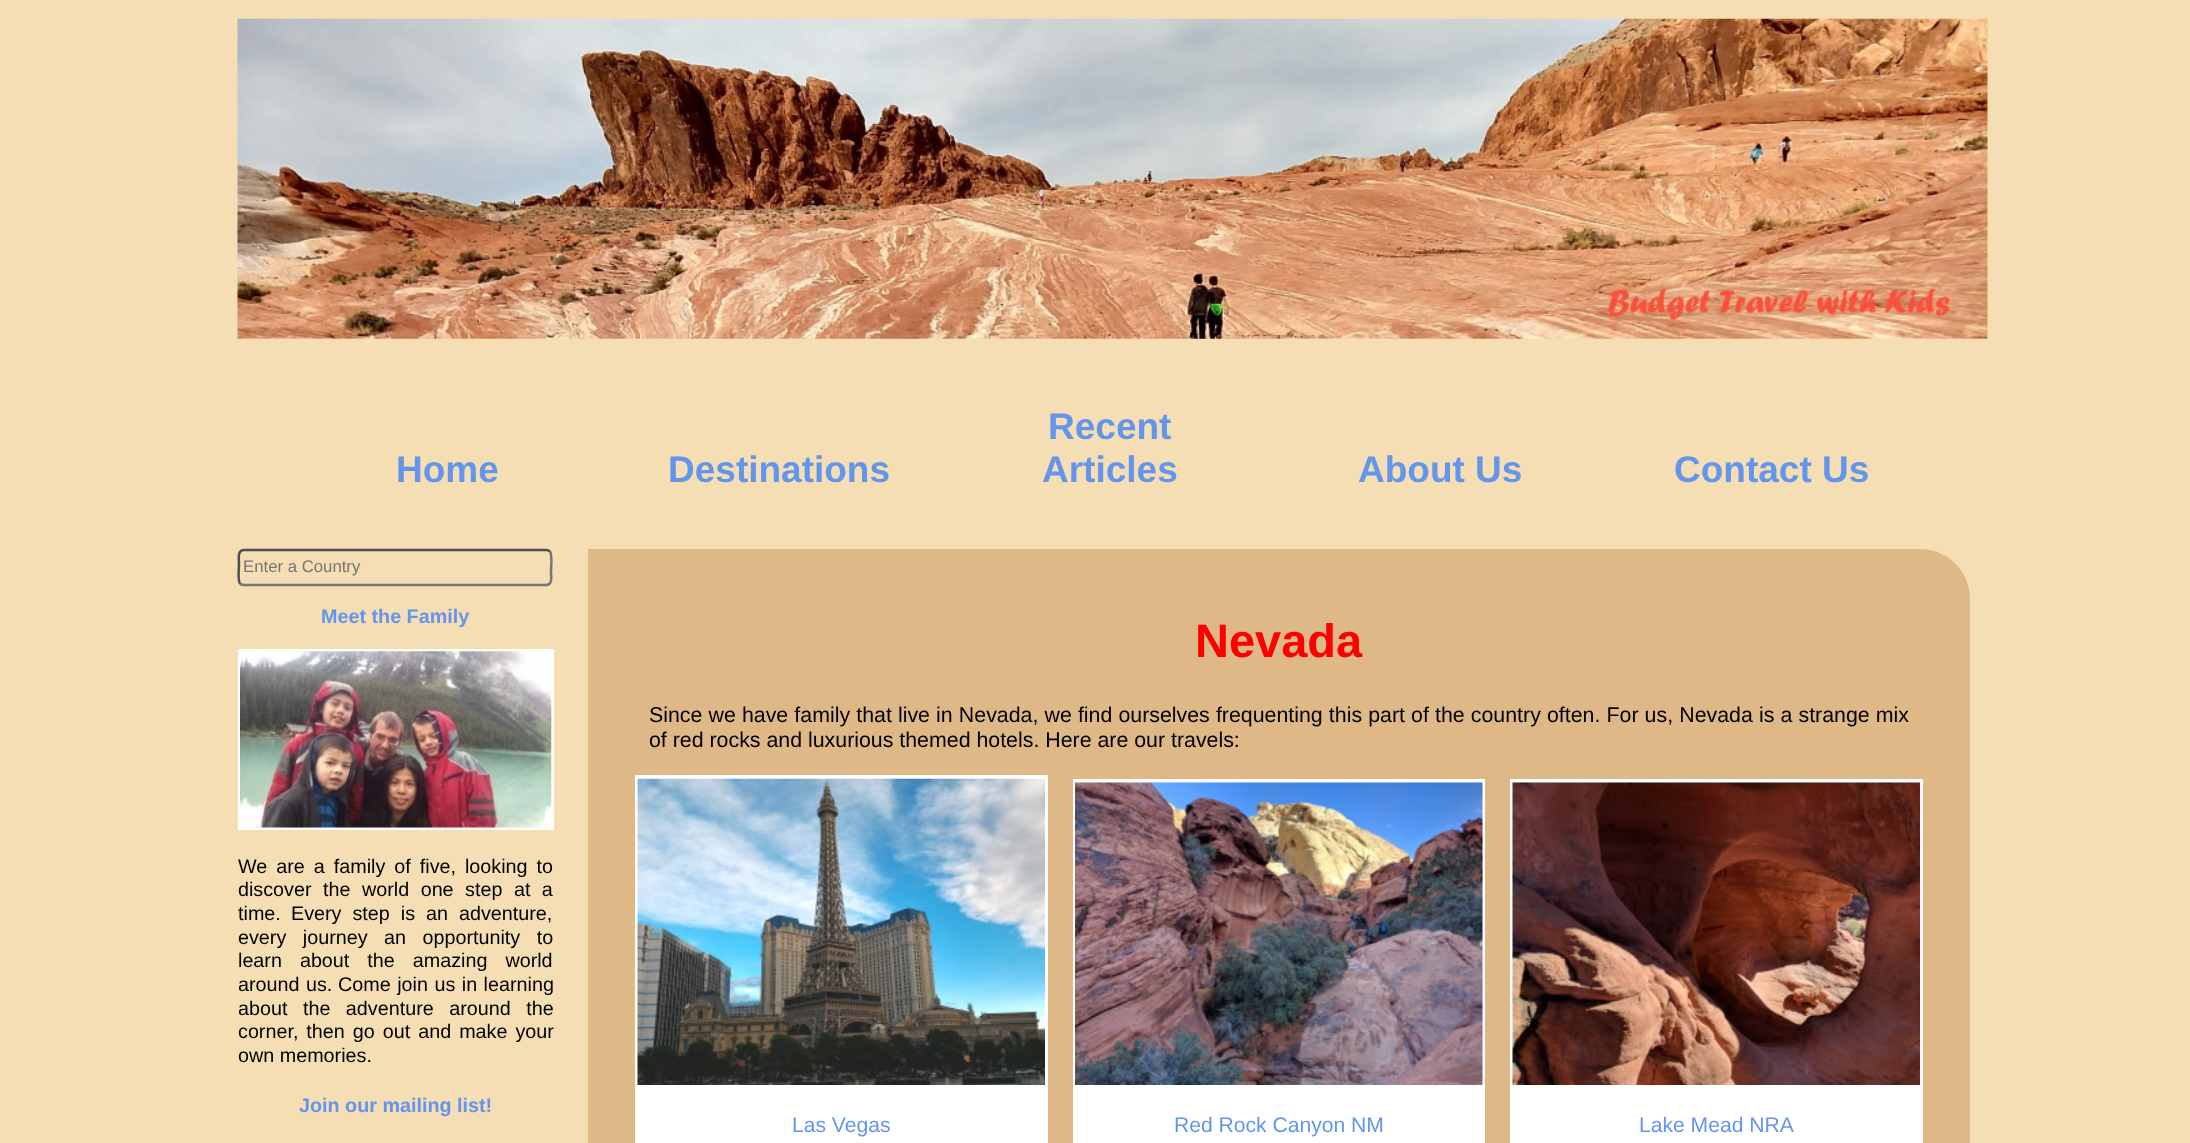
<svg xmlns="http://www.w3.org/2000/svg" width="2190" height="1143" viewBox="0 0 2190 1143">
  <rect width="100%" height="100%" fill="#f5deb3"/>
  <image x="237" y="18" width="1751" height="321" href="img1.png"/>
  <text x="396" y="482" font-family="Liberation Sans" font-size="37" font-weight="bold" fill="#6495ed">Home</text>
  <text x="668" y="482" font-family="Liberation Sans" font-size="37" font-weight="bold" fill="#6495ed">Destinations</text>
  <text x="1048" y="439" font-family="Liberation Sans" font-size="37" font-weight="bold" fill="#6495ed">Recent</text>
  <text x="1042" y="482" font-family="Liberation Sans" font-size="37" font-weight="bold" fill="#6495ed">Articles</text>
  <text x="1358" y="482" font-family="Liberation Sans" font-size="37" font-weight="bold" fill="#6495ed">About Us</text>
  <text x="1674" y="482" font-family="Liberation Sans" font-size="37" font-weight="bold" fill="#6495ed">Contact Us</text>
  <path d="M550 551.5C552.5 554.5 551 567.5 551 571.5C551 575.5 553 585 546 585H244C242.5 585 241 584.5 240 583.5" fill="none" stroke="#767676" stroke-width="2.5"/>
  <path d="M240 583.5C237.5 580.5 239 567.5 239 563.5C239 559.5 237 550 244 550H546C547.5 550 549 550.5 550 551.5" fill="none" stroke="#4f4f4f" stroke-width="2.5"/>
  <text x="243" y="572" font-family="Liberation Sans" font-size="16.75" fill="#757575">Enter a Country</text>
  <text x="321" y="623" font-family="Liberation Sans" font-size="19.75" font-weight="bold" fill="#6495ed">Meet the Family</text>
  <rect x="239.5" y="650.5" width="313" height="178" fill="none" stroke="#ffffff" stroke-width="3"/>
  <image x="240" y="651" width="312" height="177" href="img2.png"/>
  <text x="238" y="873" word-spacing="3.5" font-family="Liberation Sans" font-size="19.75" fill="#000000">We are a family of five, looking to</text>
  <text x="238" y="896" word-spacing="6" font-family="Liberation Sans" font-size="19.75" fill="#000000">discover the world one step at a</text>
  <text x="238" y="920" font-family="Liberation Sans" font-size="19.75" fill="#000000">time.</text>
  <text x="291" y="920" word-spacing="5.5" font-family="Liberation Sans" font-size="19.75" fill="#000000">Every step is an adventure,</text>
  <text x="238" y="944" word-spacing="11" font-family="Liberation Sans" font-size="19.75" fill="#000000">every journey an opportunity to</text>
  <text x="238" y="967" word-spacing="12.5" font-family="Liberation Sans" font-size="19.75" fill="#000000">learn about the amazing world</text>
  <text x="238" y="991" word-spacing="1" font-family="Liberation Sans" font-size="19.75" fill="#000000">around us.</text>
  <text x="338" y="991" word-spacing="1" font-family="Liberation Sans" font-size="19.75" fill="#000000">Come join us in learning</text>
  <text x="238" y="1015" word-spacing="10" font-family="Liberation Sans" font-size="19.75" fill="#000000">about the adventure around the</text>
  <text x="238" y="1038" word-spacing="2.5" font-family="Liberation Sans" font-size="19.75" fill="#000000">corner, then go out and make your</text>
  <text x="238" y="1062" font-family="Liberation Sans" font-size="19.75" fill="#000000">own memories.</text>
  <text x="299" y="1112" font-family="Liberation Sans" font-size="19.75" font-weight="bold" fill="#6495ed">Join our mailing list!</text>
  <path d="M588 549H1920C1947.5 549 1970 571.5 1970 599V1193H638C610.5 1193 588 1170.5 588 1143Z" fill="#deb887"/>
  <text x="1195" y="657" font-family="Liberation Sans" font-size="47" font-weight="bold" fill="#ff0000">Nevada</text>
  <text x="649" y="722" word-spacing="0.2" font-family="Liberation Sans" font-size="21.35" fill="#000000">Since we have family that live in Nevada, we find ourselves frequenting this part of the country often. For us, Nevada is a strange mix</text>
  <text x="649" y="747" font-family="Liberation Sans" font-size="21.35" fill="#000000">of red rocks and luxurious themed hotels. Here are our travels:</text>
  <rect x="635" y="775" width="413" height="368" fill="#ffffff"/>
  <image x="637" y="778" width="408" height="307" href="img3.png"/>
  <text x="792" y="1132" font-family="Liberation Sans" font-size="21.1" fill="#6495ed">Las Vegas</text>
  <rect x="1073" y="779" width="412" height="364" fill="#ffffff"/>
  <image x="1075" y="782" width="408" height="303" href="img4.png"/>
  <text x="1174" y="1132" font-family="Liberation Sans" font-size="21.1" fill="#6495ed">Red Rock Canyon NM</text>
  <rect x="1510" y="779" width="413" height="364" fill="#ffffff"/>
  <image x="1512" y="782" width="408" height="303" href="img5.png"/>
  <text x="1639" y="1132" font-family="Liberation Sans" font-size="21.1" fill="#6495ed">Lake Mead NRA</text>
</svg>
